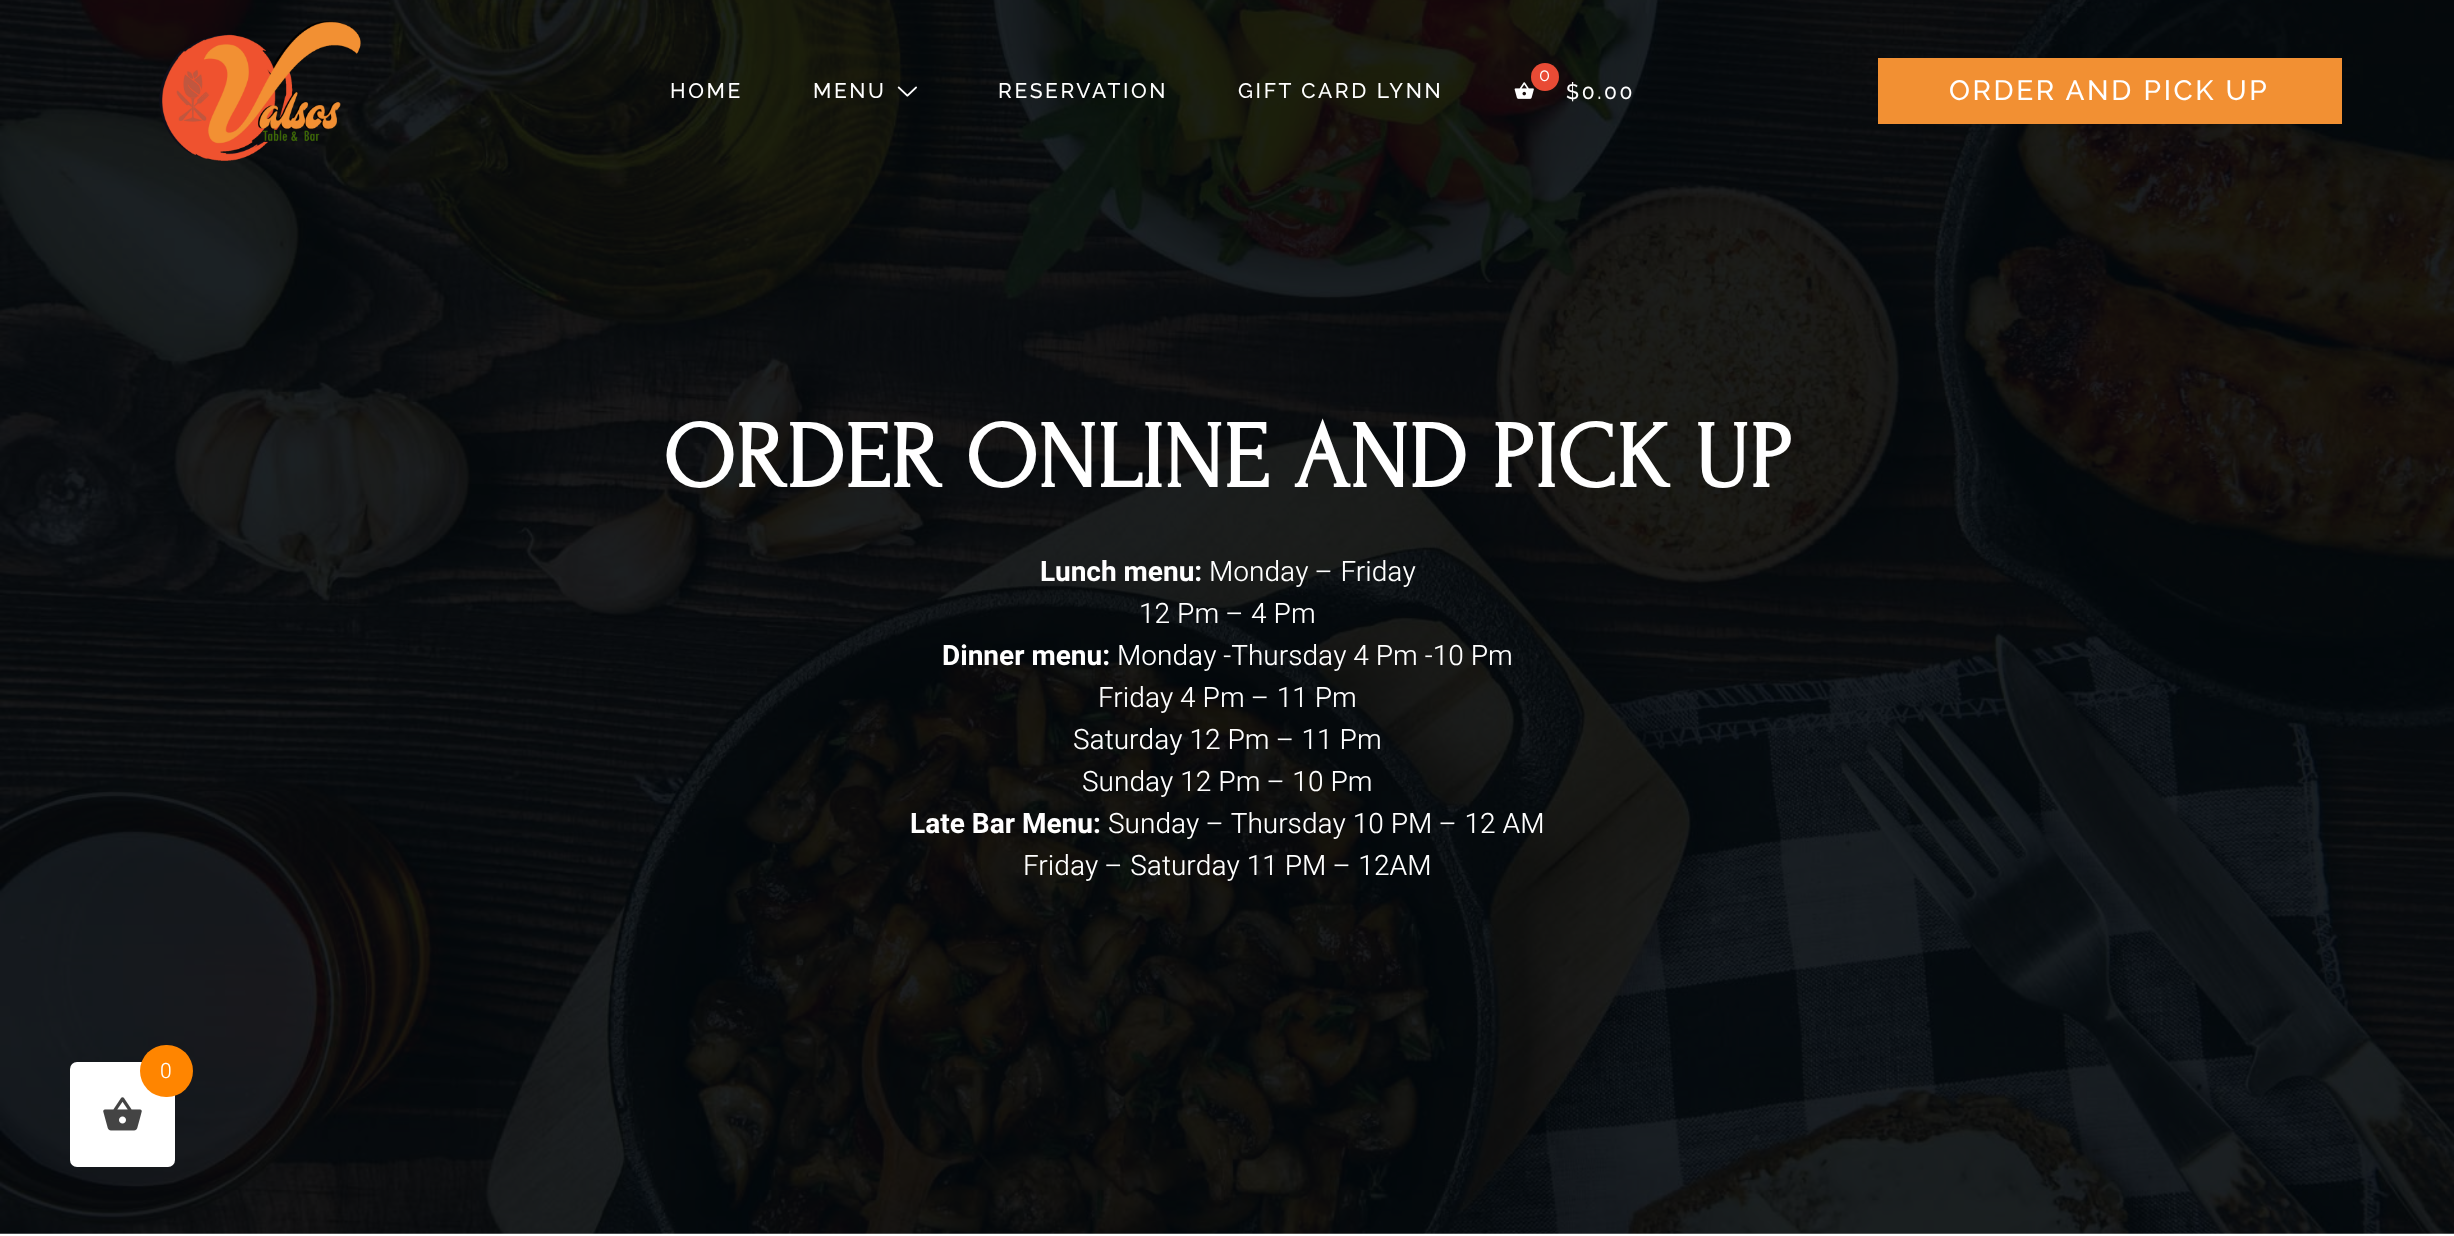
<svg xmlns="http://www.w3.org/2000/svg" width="2454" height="1236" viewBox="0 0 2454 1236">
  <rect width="100%" height="100%" fill="#ffffff"/>
  <image x="0" y="0" width="2454" height="1234" href="img4.png"/>
  <image x="159" y="21" width="202" height="140" href="img1.png"/>
  <text x="670" y="98" font-family="Raleway" font-size="21" font-weight="500" letter-spacing="2.6" fill="#ffffff">HOME</text>
  <text x="813" y="98" font-family="Raleway" font-size="21" font-weight="500" letter-spacing="2.6" fill="#ffffff">MENU</text>
  <image x="897" y="86" width="20" height="11" href="img2.png"/>
  <text x="998" y="98" font-family="Raleway" font-size="21" font-weight="500" letter-spacing="2.6" fill="#ffffff">RESERVATION</text>
  <text x="1238" y="98" font-family="Raleway" font-size="21" font-weight="500" letter-spacing="2.6" fill="#ffffff">GIFT CARD LYNN</text>
  <image x="1514" y="82" width="20" height="17" href="img3.png"/>
  <circle cx="1545" cy="77" r="14" fill="#e94b35"/>
  <text x="1539" y="81" font-family="Raleway" font-size="18" letter-spacing="2.6" fill="#ffffff">0</text>
  <text x="1566" y="99" font-family="Raleway" font-size="21" font-weight="500" letter-spacing="2.6" fill="#ffffff">$0.00</text>
  <rect x="1878" y="58" width="464" height="66" fill="#f29033"/>
  <text x="1949" y="100" font-family="Raleway" font-size="28" font-weight="500" letter-spacing="2.6" fill="#ffffff">ORDER AND PICK UP</text>
  <text x="663" y="487" font-family="Forum" font-size="94.5" font-weight="bold" fill="#ffffff">ORDER ONLINE AND PICK UP</text>
  <text x="1040" y="581" font-family="Heebo" font-size="28" font-weight="bold" fill="#ffffff">Lunch menu:</text>
  <text x="1209" y="581" font-family="Heebo" font-size="28" font-weight="300" fill="#ffffff">Monday – Friday</text>
  <text x="1139" y="623" font-family="Heebo" font-size="28" font-weight="300" fill="#ffffff">12 Pm – 4 Pm</text>
  <text x="942" y="665" font-family="Heebo" font-size="28" font-weight="bold" fill="#ffffff">Dinner menu:</text>
  <text x="1117" y="665" font-family="Heebo" font-size="28" font-weight="300" fill="#ffffff">Monday -Thursday 4 Pm -10 Pm</text>
  <text x="1098" y="707" font-family="Heebo" font-size="28" font-weight="300" fill="#ffffff">Friday 4 Pm – 11 Pm</text>
  <text x="1073" y="749" font-family="Heebo" font-size="28" font-weight="300" fill="#ffffff">Saturday 12 Pm – 11 Pm</text>
  <text x="1082" y="791" font-family="Heebo" font-size="28" font-weight="300" fill="#ffffff">Sunday 12 Pm – 10 Pm</text>
  <text x="910" y="833" font-family="Heebo" font-size="28" font-weight="bold" fill="#ffffff">Late Bar Menu:</text>
  <text x="1108" y="833" font-family="Heebo" font-size="28" font-weight="300" fill="#ffffff">Sunday – Thursday 10 PM – 12 AM</text>
  <text x="1023" y="875" font-family="Heebo" font-size="28" font-weight="300" fill="#ffffff">Friday – Saturday 11 PM – 12AM</text>
  <rect x="70" y="1062" width="105" height="105" rx="7" fill="#ffffff"/>
  <rect x="140" y="1045" width="53" height="52" rx="26" fill="#ff8500"/>
  <text x="160" y="1078" font-family="Heebo" font-size="21" font-weight="300" fill="#ffffff">0</text>
  <image x="103" y="1097" width="39" height="34" href="img5.png"/>
</svg>
